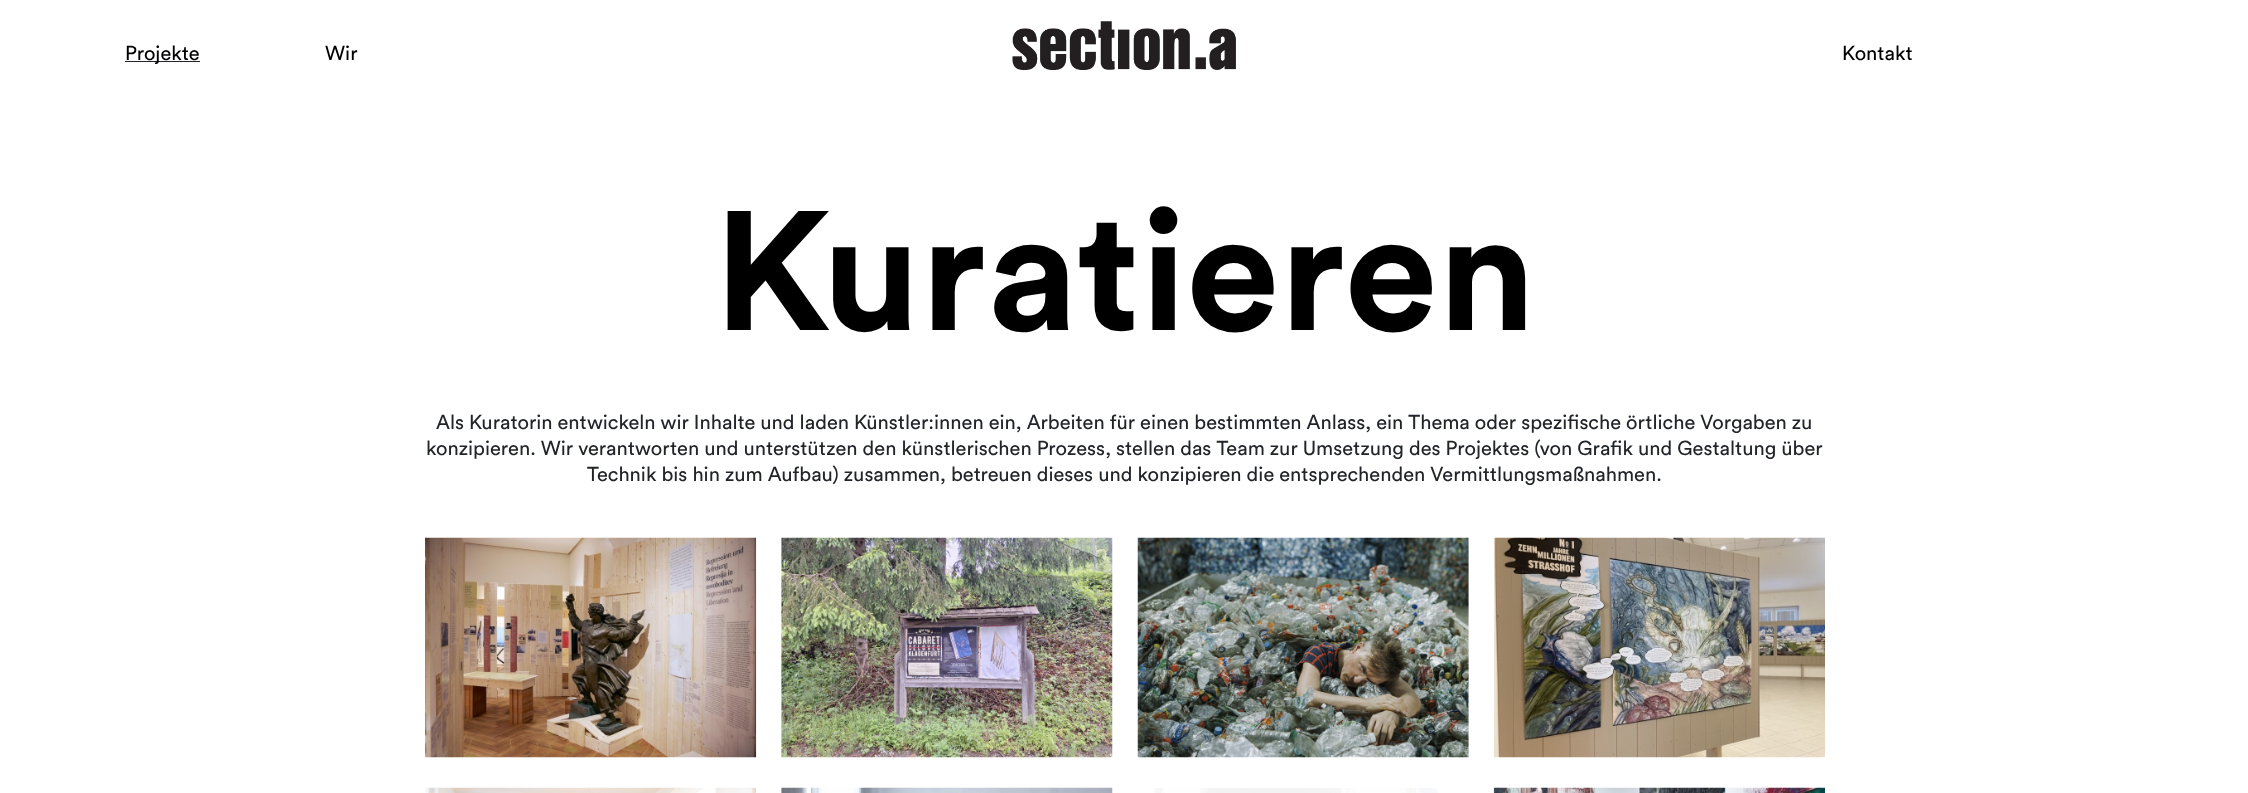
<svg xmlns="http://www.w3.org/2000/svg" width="2248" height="793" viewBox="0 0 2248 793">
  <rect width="100%" height="100%" fill="#ffffff"/>
  <rect x="125" y="61" width="75" height="1" fill="#212529"/>
  <text x="125" y="60" font-family="Circular" font-size="20" fill="#000000">Projekte</text>
  <text x="325" y="60" font-family="Circular" font-size="20" fill="#000000">Wir</text>
  <image x="1012" y="21" width="224" height="49" href="img1.png"/>
  <text x="1842" y="60" font-family="Circular" font-size="20" fill="#000000">Kontakt</text>
  <text x="714" y="330" font-family="Circular" font-size="168" font-weight="bold" fill="#000000">Kuratieren</text>
  <text x="436" y="429" font-family="Circular" font-size="20" fill="#212529">Als Kuratorin entwickeln wir Inhalte und laden Künstler:innen ein, Arbeiten für einen bestimmten Anlass, ein Thema oder spezifische örtliche Vorgaben zu</text>
  <text x="426" y="455" font-family="Circular" font-size="20" fill="#212529">konzipieren. Wir verantworten und unterstützen den künstlerischen Prozess, stellen das Team zur Umsetzung des Projektes (von Grafik und Gestaltung über</text>
  <text x="587" y="481" font-family="Circular" font-size="20" fill="#212529">Technik bis hin zum Aufbau) zusammen, betreuen dieses und konzipieren die entsprechenden Vermittlungsmaßnahmen.</text>
  <image x="425" y="537" width="332" height="221" href="img2.png"/>
  <image x="781" y="537" width="332" height="221" href="img3.png"/>
  <image x="1137" y="537" width="332" height="221" href="img4.png"/>
  <image x="1494" y="537" width="331" height="221" href="img5.png"/>
  <image x="425" y="787" width="331" height="6" href="img6.png"/>
  <image x="781" y="787" width="332" height="6" href="img7.png"/>
  <image x="1154" y="788" width="284" height="5" href="img8.png"/>
  <image x="1493" y="787" width="332" height="6" href="img9.png"/>
</svg>
